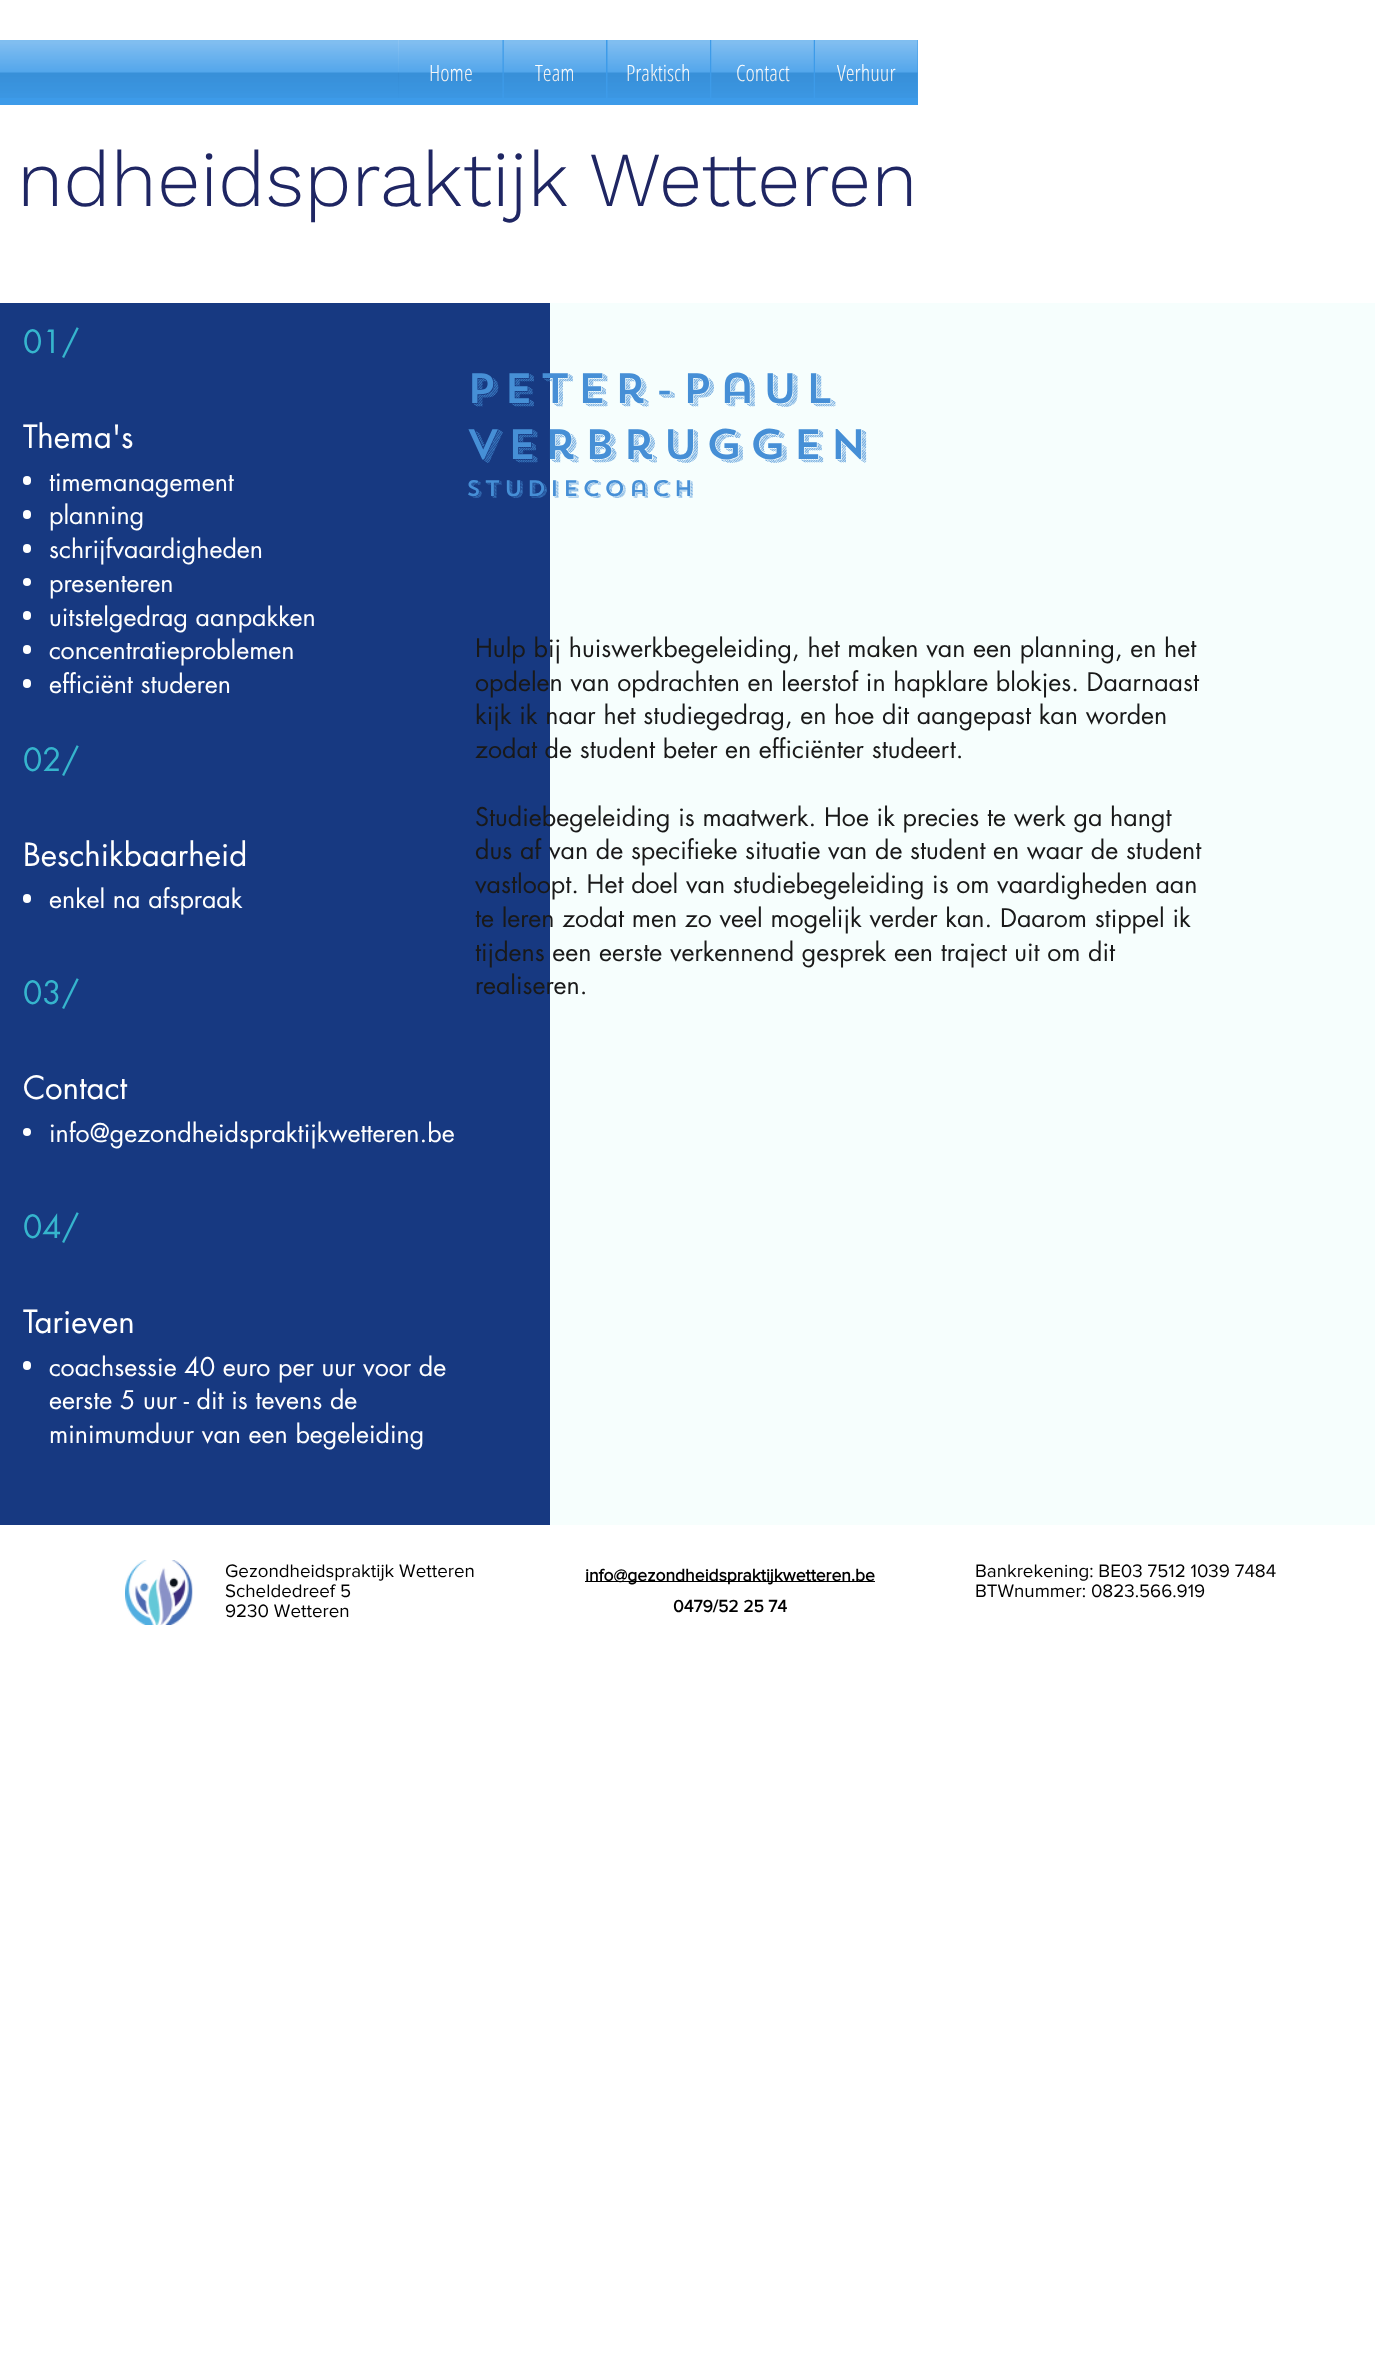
<svg xmlns="http://www.w3.org/2000/svg" width="1375" height="2371" viewBox="0 0 1375 2371">
  <rect width="100%" height="100%" fill="#ffffff"/>
  <rect x="0" y="40" width="918" height="65" fill="#3d9be9"/>
  <image x="0" y="40" width="399" height="58" href="img1.png"/>
  <text x="429" y="81" font-family="Open Sans Condensed" font-size="22.5" font-weight="300" fill="#ffffff">Home</text>
  <image x="398" y="40" width="105" height="58" href="img2.png"/>
  <text x="535" y="81" font-family="Open Sans Condensed" font-size="22.5" font-weight="300" fill="#ffffff">Team</text>
  <image x="503" y="40" width="103" height="58" href="img3.png"/>
  <text x="626" y="81" font-family="Open Sans Condensed" font-size="22.5" font-weight="300" fill="#ffffff">Praktisch</text>
  <image x="607" y="40" width="103" height="58" href="img4.png"/>
  <text x="736" y="81" font-family="Open Sans Condensed" font-size="22.5" font-weight="300" fill="#ffffff">Contact</text>
  <image x="711" y="40" width="103" height="58" href="img5.png"/>
  <text x="837" y="81" font-family="Open Sans Condensed" font-size="22.5" font-weight="300" fill="#ffffff">Verhuur</text>
  <image x="815" y="40" width="103" height="58" href="img6.png"/>
  <text x="17" y="206" font-family="Work Sans" font-size="77.5" font-weight="300" fill="#1f2663">ndheidspraktijk Wetteren</text>
  <rect x="0" y="303" width="550" height="1222" fill="#173981"/>
  <text x="23" y="353" font-family="futura" font-size="31.25" fill="#36b5cd">01/</text>
  <text x="23" y="448" font-family="futura" font-size="31.25" fill="#ffffff">Thema's</text>
  <rect x="23" y="476" width="8" height="9" rx="4" fill="#ffffff"/>
  <text x="49" y="491" font-family="futura" font-size="25" fill="#ffffff">timemanagement</text>
  <rect x="23" y="510" width="8" height="9" rx="4" fill="#ffffff"/>
  <text x="49" y="524" font-family="futura" font-size="25" fill="#ffffff">planning</text>
  <rect x="23" y="544" width="8" height="9" rx="4" fill="#ffffff"/>
  <text x="49" y="558" font-family="futura" font-size="25" fill="#ffffff">schrijfvaardigheden</text>
  <circle cx="27" cy="582" r="4" fill="#ffffff"/>
  <text x="49" y="592" font-family="futura" font-size="25" fill="#ffffff">presenteren</text>
  <rect x="23" y="611" width="8" height="9" rx="4" fill="#ffffff"/>
  <text x="49" y="626" font-family="futura" font-size="25" fill="#ffffff">uitstelgedrag aanpakken</text>
  <rect x="23" y="645" width="8" height="9" rx="4" fill="#ffffff"/>
  <text x="49" y="659" font-family="futura" font-size="25" fill="#ffffff">concentratieproblemen</text>
  <rect x="23" y="679" width="8" height="9" rx="4" fill="#ffffff"/>
  <text x="49" y="693" font-family="futura" font-size="25" fill="#ffffff">efficiënt studeren</text>
  <text x="23" y="771" font-family="futura" font-size="31.25" fill="#36b5cd">02/</text>
  <text x="23" y="866" font-family="futura" font-size="31.25" fill="#ffffff">Beschikbaarheid</text>
  <rect x="23" y="894" width="8" height="9" rx="4" fill="#ffffff"/>
  <text x="49" y="908" font-family="futura" font-size="25" fill="#ffffff">enkel na afspraak</text>
  <text x="23" y="1004" font-family="futura" font-size="31.25" fill="#36b5cd">03/</text>
  <text x="23" y="1099" font-family="futura" font-size="31.25" fill="#ffffff">Contact</text>
  <circle cx="27" cy="1132" r="4" fill="#ffffff"/>
  <text x="49" y="1142" font-family="futura" font-size="25" fill="#ffffff">info@gezondheidspraktijkwetteren.be</text>
  <text x="23" y="1238" font-family="futura" font-size="31.25" fill="#36b5cd">04/</text>
  <text x="23" y="1333" font-family="futura" font-size="31.25" fill="#ffffff">Tarieven</text>
  <rect x="23" y="1361" width="8" height="9" rx="4" fill="#ffffff"/>
  <text x="49" y="1376" font-family="futura" font-size="25" fill="#ffffff">coachsessie 40 euro per uur voor de</text>
  <text x="49" y="1409" font-family="futura" font-size="25" fill="#ffffff">eerste 5 uur - dit is tevens de</text>
  <text x="49" y="1443" font-family="futura" font-size="25" fill="#ffffff">minimumduur van een begeleiding</text>
  <rect x="550" y="303" width="825" height="1222" fill="#f6fefd"/>
  <text x="466" y="403" font-family="'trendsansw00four'" font-size="42.5" font-weight="500" letter-spacing="6.4" fill="#468fd6">Peter-Paul</text>
  <text x="466" y="459" font-family="'trendsansw00four'" font-size="42.5" font-weight="500" letter-spacing="6.4" fill="#468fd6">Verbruggen</text>
  <text x="466" y="496" font-family="'trendsansw00four'" font-size="22.5" font-weight="500" letter-spacing="3.4" fill="#468fd6">studiecoach</text>
  <text x="475" y="657" font-family="futura" font-size="25" fill="#191919">Hulp bij huiswerkbegeleiding, het maken van een planning, en het</text>
  <text x="475" y="691" font-family="futura" font-size="25" fill="#191919">opdelen van opdrachten en leerstof in hapklare blokjes. Daarnaast</text>
  <text x="475" y="724" font-family="futura" font-size="25" fill="#191919">kijk ik naar het studiegedrag, en hoe dit aangepast kan worden</text>
  <text x="475" y="758" font-family="futura" font-size="25" fill="#191919">zodat de student beter en efficiënter studeert.</text>
  <text x="475" y="826" font-family="futura" font-size="25" fill="#191919">Studiebegeleiding is maatwerk. Hoe ik precies te werk ga hangt</text>
  <text x="475" y="859" font-family="futura" font-size="25" fill="#191919">dus af van de specifieke situatie van de student en waar de student</text>
  <text x="475" y="893" font-family="futura" font-size="25" fill="#191919">vastloopt. Het doel van studiebegeleiding is om vaardigheden aan</text>
  <text x="475" y="927" font-family="futura" font-size="25" fill="#191919">te leren zodat men zo veel mogelijk verder kan. Daarom stippel ik</text>
  <text x="475" y="961" font-family="futura" font-size="25" fill="#191919">tijdens een eerste verkennend gesprek een traject uit om dit</text>
  <text x="475" y="994" font-family="futura" font-size="25" fill="#191919">realiseren.</text>
  <image x="125" y="1560" width="68" height="65" href="img7.png"/>
  <text x="225" y="1577" font-family="'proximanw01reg'" font-size="18.75" fill="#000000">Gezondheidspraktijk Wetteren</text>
  <text x="225" y="1597" font-family="'proximanw01reg'" font-size="18.75" fill="#000000">Scheldedreef 5</text>
  <text x="225" y="1617" font-family="'proximanw01reg'" font-size="18.75" fill="#000000">9230 Wetteren</text>
  <rect x="585" y="1581" width="290" height="1" fill="#000000"/>
  <text x="585" y="1581" font-family="'proximanw01reg'" font-size="17.5" font-weight="bold" fill="#000000">info@gezondheidspraktijkwetteren.be</text>
  <text x="673" y="1612" font-family="'proximanw01reg'" font-size="17.5" font-weight="bold" fill="#000000">0479/52 25 74</text>
  <text x="975" y="1577" font-family="'proximanw01reg'" font-size="18.75" fill="#000000">Bankrekening: BE03 7512 1039 7484</text>
  <text x="975" y="1597" font-family="'proximanw01reg'" font-size="18.75" fill="#000000">BTWnummer: 0823.566.919</text>
</svg>
